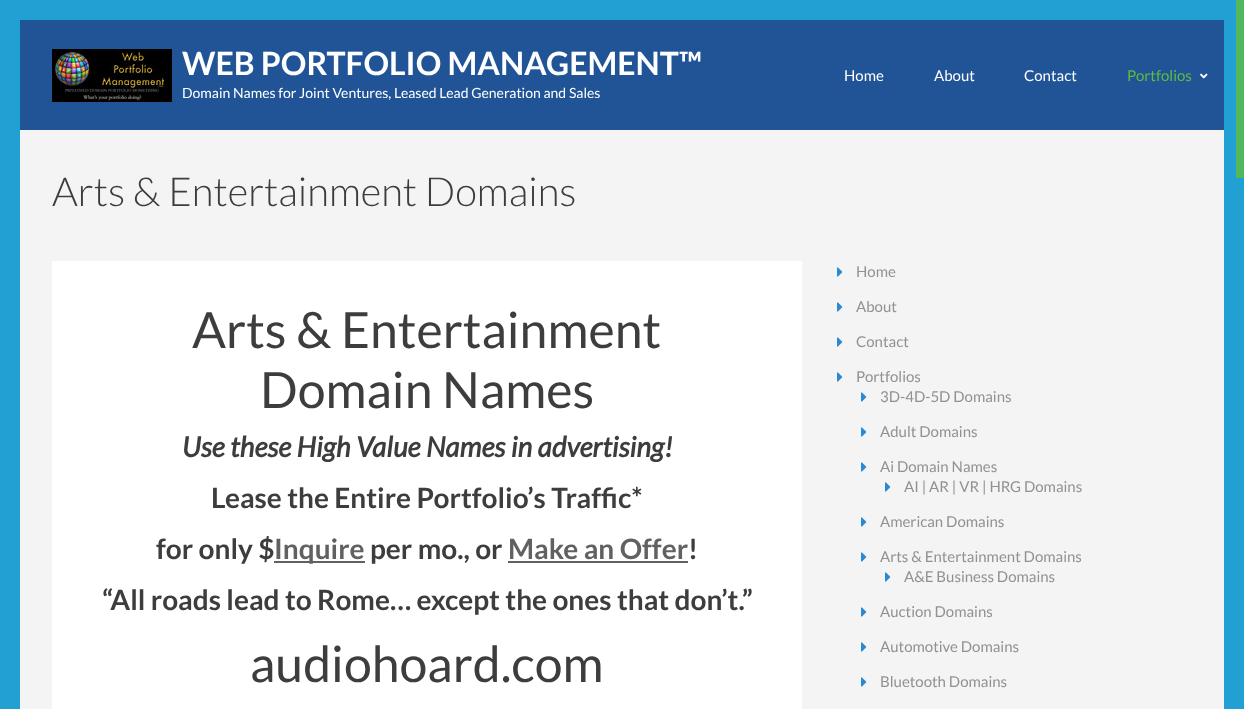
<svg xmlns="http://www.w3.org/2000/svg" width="1244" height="709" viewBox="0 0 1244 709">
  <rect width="100%" height="100%" fill="#21a1d3"/>
  <rect x="20" y="130" width="1204" height="579" fill="#f4f4f4"/>
  <rect x="20" y="20" width="1204" height="110" fill="#205497"/>
  <image x="52" y="49" width="120" height="53" href="img1.png"/>
  <text x="182" y="75" font-family="Lato" font-size="32" font-weight="bold" fill="#ffffff">WEB PORTFOLIO MANAGEMENT™</text>
  <text x="182" y="98" font-family="Lato" font-size="14" fill="#ffffff">Domain Names for Joint Ventures, Leased Lead Generation and Sales</text>
  <text x="844" y="81" font-family="Lato" font-size="15" fill="#ffffff">Home</text>
  <text x="934" y="81" font-family="Lato" font-size="15" fill="#ffffff">About</text>
  <text x="1024" y="81" font-family="Lato" font-size="15" fill="#ffffff">Contact</text>
  <text x="1127" y="81" font-family="Lato" font-size="15" fill="#5fbd3e">Portfolios</text>
  <image x="1200" y="73" width="8" height="6" href="img2.png"/>
  <text x="52" y="206" font-family="Lato" font-size="40" font-weight="300" fill="#3d3d3d">Arts &amp; Entertainment Domains</text>
  <rect x="52" y="261" width="750" height="448" fill="#ffffff"/>
  <text x="192" y="348" font-family="Lato" font-size="50" fill="#3d3d3d">Arts &amp; Entertainment</text>
  <text x="260" y="408" font-family="Lato" font-size="50" fill="#3d3d3d">Domain Names</text>
  <text x="182" y="457" font-family="Lato" font-size="28" font-weight="bold" font-style="italic" fill="#3d3d3d">Use these High Value Names in advertising!</text>
  <text x="211" y="508" font-family="Lato" font-size="28" font-weight="bold" fill="#3d3d3d">Lease the Entire Portfolio’s Traffic*</text>
  <text x="156" y="559" font-family="Lato" font-size="28" font-weight="bold" fill="#3d3d3d">for only $</text>
  <rect x="274" y="561" width="91" height="2" fill="#616161"/>
  <text x="274" y="559" font-family="Lato" font-size="28" font-weight="bold" fill="#616161">Inquire</text>
  <text x="370" y="559" font-family="Lato" font-size="28" font-weight="bold" fill="#3d3d3d">per mo., or</text>
  <text x="508" y="559" font-family="Lato" font-size="28" font-weight="bold" fill="#616161">Make an Offer</text>
  <rect x="508" y="561" width="180" height="2" fill="#616161"/>
  <text x="688" y="559" font-family="Lato" font-size="28" font-weight="bold" fill="#3d3d3d">!</text>
  <text x="102" y="610" font-family="Lato" font-size="28" font-weight="bold" fill="#3d3d3d">“All roads lead to Rome… except the ones that don’t.”</text>
  <text x="250" y="682" font-family="Lato" font-size="50" fill="#3d3d3d">audiohoard.com</text>
  <image x="837" y="267" width="6" height="10" href="img3.png"/>
  <text x="856" y="277" font-family="Lato" font-size="15" fill="#919191">Home</text>
  <image x="837" y="302" width="6" height="10" href="img3.png"/>
  <text x="856" y="312" font-family="Lato" font-size="15" fill="#919191">About</text>
  <image x="837" y="337" width="6" height="10" href="img3.png"/>
  <text x="856" y="347" font-family="Lato" font-size="15" fill="#919191">Contact</text>
  <image x="837" y="372" width="6" height="10" href="img3.png"/>
  <text x="856" y="382" font-family="Lato" font-size="15" fill="#919191">Portfolios</text>
  <image x="861" y="392" width="6" height="10" href="img3.png"/>
  <text x="880" y="402" font-family="Lato" font-size="15" fill="#919191">3D-4D-5D Domains</text>
  <image x="861" y="427" width="6" height="10" href="img3.png"/>
  <text x="880" y="437" font-family="Lato" font-size="15" fill="#919191">Adult Domains</text>
  <image x="861" y="462" width="6" height="10" href="img3.png"/>
  <text x="880" y="472" font-family="Lato" font-size="15" fill="#919191">Ai Domain Names</text>
  <image x="885" y="482" width="6" height="10" href="img3.png"/>
  <text x="904" y="492" font-family="Lato" font-size="15" fill="#919191">AI | AR | VR | HRG Domains</text>
  <image x="861" y="517" width="6" height="10" href="img3.png"/>
  <text x="880" y="527" font-family="Lato" font-size="15" fill="#919191">American Domains</text>
  <image x="861" y="552" width="6" height="10" href="img3.png"/>
  <text x="880" y="562" font-family="Lato" font-size="15" fill="#919191">Arts &amp; Entertainment Domains</text>
  <image x="885" y="572" width="6" height="10" href="img3.png"/>
  <text x="904" y="582" font-family="Lato" font-size="15" fill="#919191">A&amp;E Business Domains</text>
  <image x="861" y="607" width="6" height="10" href="img3.png"/>
  <text x="880" y="617" font-family="Lato" font-size="15" fill="#919191">Auction Domains</text>
  <image x="861" y="642" width="6" height="10" href="img3.png"/>
  <text x="880" y="652" font-family="Lato" font-size="15" fill="#919191">Automotive Domains</text>
  <image x="861" y="677" width="6" height="10" href="img3.png"/>
  <text x="880" y="687" font-family="Lato" font-size="15" fill="#919191">Bluetooth Domains</text>
  <rect x="1236" y="0" width="8" height="178" fill="#53b75c"/>
</svg>
